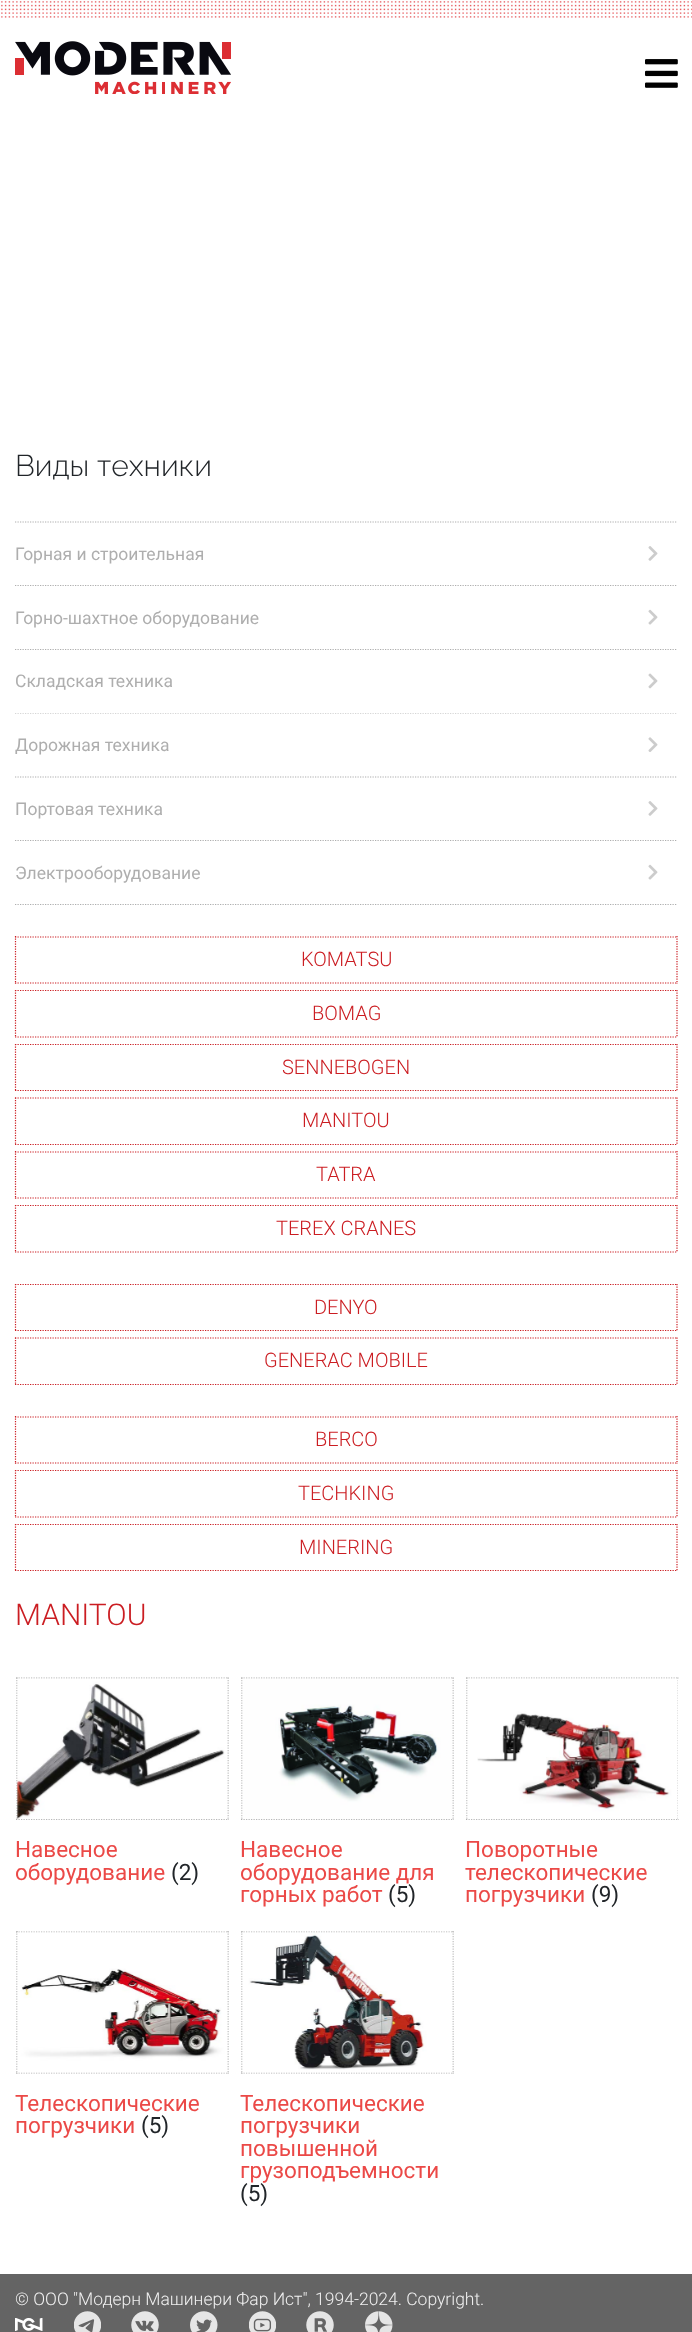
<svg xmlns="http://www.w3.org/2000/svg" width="692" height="2332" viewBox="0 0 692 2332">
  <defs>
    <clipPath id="clip1"><rect x="15" y="1665" width="663" height="254"/></clipPath>
  </defs>
  <rect width="100%" height="100%" fill="#ffffff"/>
  <image x="1" y="1" width="691" height="17" href="img1.png"/>
  <image x="15" y="41" width="216" height="53" href="img2.png"/>
  <image x="645" y="59" width="33" height="29" href="img3.png"/>
  <text x="15" y="476" font-family="Raleway" font-size="30" font-weight="300" fill="#212529">Виды техники</text>
  <path d="M15 522H677.5" fill="none" stroke="#aeaeae" stroke-width="1.2" stroke-dasharray="1.25 1.25"/>
  <path d="M15 585.5H677.5" fill="none" stroke="#aeaeae" stroke-width="1.2" stroke-dasharray="1.25 1.25"/>
  <rect x="15" y="584" width="661" height="1" fill="#ffffff"/>
  <text x="15" y="560" font-family="Roboto" font-size="17.5" fill="#aeaeae">Горная и строительная</text>
  <image x="648" y="546" width="10" height="15" href="img4.png"/>
  <path d="M15 649.5H677.5" fill="none" stroke="#aeaeae" stroke-width="1.2" stroke-dasharray="1.25 1.25"/>
  <rect x="15" y="586" width="661" height="63" fill="#ffffff"/>
  <text x="15" y="624" font-family="Roboto" font-size="17.5" fill="#aeaeae">Горно-шахтное оборудование</text>
  <image x="648" y="609" width="10" height="16" href="img5.png"/>
  <path d="M15 713H677.5" fill="none" stroke="#aeaeae" stroke-width="1.2" stroke-dasharray="1.25 1.25"/>
  <rect x="15" y="650" width="662" height="63" fill="#ffffff"/>
  <text x="15" y="687" font-family="Roboto" font-size="17.5" fill="#aeaeae">Складская техника</text>
  <image x="648" y="673" width="10" height="16" href="img6.png"/>
  <path d="M15 777H677.5" fill="none" stroke="#aeaeae" stroke-width="1.2" stroke-dasharray="1.25 1.25"/>
  <text x="15" y="751" font-family="Roboto" font-size="17.5" fill="#aeaeae">Дорожная техника</text>
  <image x="648" y="737" width="10" height="15" href="img7.png"/>
  <path d="M15 840.5H677.5" fill="none" stroke="#aeaeae" stroke-width="1.2" stroke-dasharray="1.25 1.25"/>
  <rect x="15" y="839" width="661" height="1" fill="#ffffff"/>
  <text x="15" y="815" font-family="Roboto" font-size="17.5" fill="#aeaeae">Портовая техника</text>
  <image x="648" y="801" width="10" height="15" href="img4.png"/>
  <path d="M15 904.5H677.5" fill="none" stroke="#aeaeae" stroke-width="1.2" stroke-dasharray="1.25 1.25"/>
  <rect x="15" y="841" width="661" height="63" fill="#ffffff"/>
  <text x="15" y="879" font-family="Roboto" font-size="17.5" fill="#aeaeae">Электрооборудование</text>
  <image x="648" y="864" width="10" height="16" href="img5.png"/>
  <path d="M15 937H677.5" fill="none" stroke="#cb1d22" stroke-width="1.2" stroke-dasharray="1.25 1.25"/>
  <path d="M677 936V984" fill="none" stroke="#cb1d22" stroke-width="1.2" stroke-dasharray="1.25 1.25"/>
  <path d="M15 983H677.5" fill="none" stroke="#cb1d22" stroke-width="1.2" stroke-dasharray="1.25 1.25"/>
  <path d="M15.5 936V984" fill="none" stroke="#cb1d22" stroke-width="1.2" stroke-dasharray="1.25 1.25"/>
  <text x="301" y="966" font-family="Roboto" font-size="20" font-weight="300" fill="#cb1d22">KOMATSU</text>
  <path d="M15 990.5H677.5" fill="none" stroke="#cb1d22" stroke-width="1.2" stroke-dasharray="1.25 1.25"/>
  <path d="M677 990V1037.5" fill="none" stroke="#cb1d22" stroke-width="1.2" stroke-dasharray="1.25 1.25"/>
  <path d="M15 1037H677.5" fill="none" stroke="#cb1d22" stroke-width="1.2" stroke-dasharray="1.25 1.25"/>
  <path d="M15.5 990V1037.5" fill="none" stroke="#cb1d22" stroke-width="1.2" stroke-dasharray="1.25 1.25"/>
  <text x="312" y="1020" font-family="Roboto" font-size="20" font-weight="300" fill="#cb1d22">BOMAG</text>
  <path d="M15 1044.5H677.5" fill="none" stroke="#cb1d22" stroke-width="1.2" stroke-dasharray="1.25 1.25"/>
  <path d="M677 1044V1091" fill="none" stroke="#cb1d22" stroke-width="1.2" stroke-dasharray="1.25 1.25"/>
  <path d="M15 1090.5H677.5" fill="none" stroke="#cb1d22" stroke-width="1.2" stroke-dasharray="1.25 1.25"/>
  <path d="M15.5 1044V1091" fill="none" stroke="#cb1d22" stroke-width="1.2" stroke-dasharray="1.25 1.25"/>
  <text x="282" y="1074" font-family="Roboto" font-size="20" font-weight="300" fill="#cb1d22">SENNEBOGEN</text>
  <path d="M15 1098H677.5" fill="none" stroke="#cb1d22" stroke-width="1.2" stroke-dasharray="1.25 1.25"/>
  <path d="M677 1097.5V1145" fill="none" stroke="#cb1d22" stroke-width="1.2" stroke-dasharray="1.25 1.25"/>
  <path d="M15 1144.5H677.5" fill="none" stroke="#cb1d22" stroke-width="1.2" stroke-dasharray="1.25 1.25"/>
  <path d="M15.5 1097.5V1145" fill="none" stroke="#cb1d22" stroke-width="1.2" stroke-dasharray="1.25 1.25"/>
  <text x="302" y="1127" font-family="Roboto" font-size="20" font-weight="300" fill="#cb1d22">MANITOU</text>
  <path d="M15 1152H677.5" fill="none" stroke="#cb1d22" stroke-width="1.2" stroke-dasharray="1.25 1.25"/>
  <path d="M677 1151V1199" fill="none" stroke="#cb1d22" stroke-width="1.2" stroke-dasharray="1.25 1.25"/>
  <path d="M15 1198H677.5" fill="none" stroke="#cb1d22" stroke-width="1.2" stroke-dasharray="1.25 1.25"/>
  <path d="M15.5 1151V1199" fill="none" stroke="#cb1d22" stroke-width="1.2" stroke-dasharray="1.25 1.25"/>
  <text x="316" y="1181" font-family="Roboto" font-size="20" font-weight="300" fill="#cb1d22">TATRA</text>
  <path d="M15 1205.5H677.5" fill="none" stroke="#cb1d22" stroke-width="1.2" stroke-dasharray="1.25 1.25"/>
  <path d="M677 1205V1252.5" fill="none" stroke="#cb1d22" stroke-width="1.2" stroke-dasharray="1.25 1.25"/>
  <path d="M15 1252H677.5" fill="none" stroke="#cb1d22" stroke-width="1.2" stroke-dasharray="1.25 1.25"/>
  <path d="M15.5 1205V1252.5" fill="none" stroke="#cb1d22" stroke-width="1.2" stroke-dasharray="1.25 1.25"/>
  <text x="276" y="1235" font-family="Roboto" font-size="20" font-weight="300" fill="#cb1d22">TEREX CRANES</text>
  <path d="M15 1284.5H677.5" fill="none" stroke="#cb1d22" stroke-width="1.2" stroke-dasharray="1.25 1.25"/>
  <path d="M677 1284V1331" fill="none" stroke="#cb1d22" stroke-width="1.2" stroke-dasharray="1.25 1.25"/>
  <path d="M15 1330.5H677.5" fill="none" stroke="#cb1d22" stroke-width="1.2" stroke-dasharray="1.25 1.25"/>
  <path d="M15.5 1284V1331" fill="none" stroke="#cb1d22" stroke-width="1.2" stroke-dasharray="1.25 1.25"/>
  <text x="314" y="1314" font-family="Roboto" font-size="20" font-weight="300" fill="#cb1d22">DENYO</text>
  <path d="M15 1338H677.5" fill="none" stroke="#cb1d22" stroke-width="1.2" stroke-dasharray="1.25 1.25"/>
  <path d="M677 1337.5V1385" fill="none" stroke="#cb1d22" stroke-width="1.2" stroke-dasharray="1.25 1.25"/>
  <path d="M15 1384.5H677.5" fill="none" stroke="#cb1d22" stroke-width="1.2" stroke-dasharray="1.25 1.25"/>
  <path d="M15.5 1337.5V1385" fill="none" stroke="#cb1d22" stroke-width="1.2" stroke-dasharray="1.25 1.25"/>
  <text x="264" y="1367" font-family="Roboto" font-size="20" font-weight="300" fill="#cb1d22">GENERAC MOBILE</text>
  <path d="M15 1417H677.5" fill="none" stroke="#cb1d22" stroke-width="1.2" stroke-dasharray="1.25 1.25"/>
  <path d="M677 1416V1464" fill="none" stroke="#cb1d22" stroke-width="1.2" stroke-dasharray="1.25 1.25"/>
  <path d="M15 1463H677.5" fill="none" stroke="#cb1d22" stroke-width="1.2" stroke-dasharray="1.25 1.25"/>
  <path d="M15.5 1416V1464" fill="none" stroke="#cb1d22" stroke-width="1.2" stroke-dasharray="1.25 1.25"/>
  <text x="315" y="1446" font-family="Roboto" font-size="20" font-weight="300" fill="#cb1d22">BERCO</text>
  <path d="M15 1470.5H677.5" fill="none" stroke="#cb1d22" stroke-width="1.2" stroke-dasharray="1.25 1.25"/>
  <path d="M677 1470V1517.5" fill="none" stroke="#cb1d22" stroke-width="1.2" stroke-dasharray="1.25 1.25"/>
  <path d="M15 1517H677.5" fill="none" stroke="#cb1d22" stroke-width="1.2" stroke-dasharray="1.25 1.25"/>
  <path d="M15.5 1470V1517.5" fill="none" stroke="#cb1d22" stroke-width="1.2" stroke-dasharray="1.25 1.25"/>
  <text x="298" y="1500" font-family="Roboto" font-size="20" font-weight="300" fill="#cb1d22">TECHKING</text>
  <path d="M15 1524.5H677.5" fill="none" stroke="#cb1d22" stroke-width="1.2" stroke-dasharray="1.25 1.25"/>
  <path d="M677 1524V1571" fill="none" stroke="#cb1d22" stroke-width="1.2" stroke-dasharray="1.25 1.25"/>
  <path d="M15 1570.5H677.5" fill="none" stroke="#cb1d22" stroke-width="1.2" stroke-dasharray="1.25 1.25"/>
  <path d="M15.5 1524V1571" fill="none" stroke="#cb1d22" stroke-width="1.2" stroke-dasharray="1.25 1.25"/>
  <text x="299" y="1554" font-family="Roboto" font-size="20" font-weight="300" fill="#cb1d22">MINERING</text>
  <text x="15" y="1625" font-family="Roboto" font-size="30" font-weight="300" fill="#cb1d22">MANITOU</text>
  <path d="M16 1678H229" fill="none" stroke="#aeaeae" stroke-width="1.2" stroke-dasharray="1.25 1.25"/>
  <path d="M228 1677.5V1820" fill="none" stroke="#aeaeae" stroke-width="1.2" stroke-dasharray="1.25 1.25"/>
  <path d="M16 1819.5H229" fill="none" stroke="#aeaeae" stroke-width="1.2" stroke-dasharray="1.25 1.25"/>
  <path d="M17 1677.5V1820" fill="none" stroke="#aeaeae" stroke-width="1.2" stroke-dasharray="1.25 1.25"/>
  <image x="17" y="1678" width="211" height="142" href="img8.png"/>
  <text x="15" y="1857" font-family="Roboto" font-size="22.5" fill="#eb4947">Навесное</text>
  <text x="15" y="1880" font-family="Roboto" font-size="22.5" fill="#eb4947">оборудование</text>
  <text x="171" y="1880" font-family="Roboto" font-size="22.5" fill="#212529">(2)</text>
  <path d="M241 1678H454" fill="none" stroke="#aeaeae" stroke-width="1.2" stroke-dasharray="1.25 1.25"/>
  <path d="M453 1677.5V1820" fill="none" stroke="#aeaeae" stroke-width="1.2" stroke-dasharray="1.25 1.25"/>
  <path d="M241 1819.5H454" fill="none" stroke="#aeaeae" stroke-width="1.2" stroke-dasharray="1.25 1.25"/>
  <path d="M242 1677.5V1820" fill="none" stroke="#aeaeae" stroke-width="1.2" stroke-dasharray="1.25 1.25"/>
  <image x="242" y="1678" width="211" height="142" href="img9.png"/>
  <text x="240" y="1857" font-family="Roboto" font-size="22.5" fill="#eb4947">Навесное</text>
  <text x="240" y="1880" font-family="Roboto" font-size="22.5" fill="#eb4947">оборудование для</text>
  <text x="240" y="1902" font-family="Roboto" font-size="22.5" fill="#eb4947">горных работ</text>
  <text x="388" y="1902" font-family="Roboto" font-size="22.5" fill="#212529">(5)</text>
  <path d="M466 1678H679" fill="none" stroke="#aeaeae" stroke-width="1.2" stroke-dasharray="1.25 1.25"/>
  <g clip-path="url(#clip1)">
    <path d="M678 1677.5V1820" fill="none" stroke="#aeaeae" stroke-width="1.2" stroke-dasharray="1.25 1.25"/>
  </g>
  <path d="M466 1819.5H679" fill="none" stroke="#aeaeae" stroke-width="1.2" stroke-dasharray="1.25 1.25"/>
  <path d="M467 1677.5V1820" fill="none" stroke="#aeaeae" stroke-width="1.2" stroke-dasharray="1.25 1.25"/>
  <image x="467" y="1678" width="211" height="142" href="img10.png"/>
  <text x="465" y="1857" font-family="Roboto" font-size="22.5" fill="#eb4947">Поворотные</text>
  <text x="465" y="1880" font-family="Roboto" font-size="22.5" fill="#eb4947">телескопические</text>
  <text x="465" y="1902" font-family="Roboto" font-size="22.5" fill="#eb4947">погрузчики</text>
  <text x="591" y="1902" font-family="Roboto" font-size="22.5" fill="#212529">(9)</text>
  <path d="M16 1932H229" fill="none" stroke="#aeaeae" stroke-width="1.2" stroke-dasharray="1.25 1.25"/>
  <path d="M228 1931V2074" fill="none" stroke="#aeaeae" stroke-width="1.2" stroke-dasharray="1.25 1.25"/>
  <path d="M16 2073H229" fill="none" stroke="#aeaeae" stroke-width="1.2" stroke-dasharray="1.25 1.25"/>
  <path d="M17 1931V2074" fill="none" stroke="#aeaeae" stroke-width="1.2" stroke-dasharray="1.25 1.25"/>
  <image x="17" y="1932" width="211" height="141" href="img11.png"/>
  <text x="15" y="2111" font-family="Roboto" font-size="22.5" fill="#eb4947">Телескопические</text>
  <text x="15" y="2133" font-family="Roboto" font-size="22.5" fill="#eb4947">погрузчики</text>
  <text x="141" y="2133" font-family="Roboto" font-size="22.5" fill="#212529">(5)</text>
  <path d="M241 1932H454" fill="none" stroke="#aeaeae" stroke-width="1.2" stroke-dasharray="1.25 1.25"/>
  <path d="M453 1931V2074" fill="none" stroke="#aeaeae" stroke-width="1.2" stroke-dasharray="1.25 1.25"/>
  <path d="M241 2073H454" fill="none" stroke="#aeaeae" stroke-width="1.2" stroke-dasharray="1.25 1.25"/>
  <path d="M242 1931V2074" fill="none" stroke="#aeaeae" stroke-width="1.2" stroke-dasharray="1.25 1.25"/>
  <image x="242" y="1932" width="211" height="141" href="img12.png"/>
  <text x="240" y="2111" font-family="Roboto" font-size="22.5" fill="#eb4947">Телескопические</text>
  <text x="240" y="2133" font-family="Roboto" font-size="22.5" fill="#eb4947">погрузчики</text>
  <text x="240" y="2156" font-family="Roboto" font-size="22.5" fill="#eb4947">повышенной</text>
  <text x="240" y="2178" font-family="Roboto" font-size="22.5" fill="#eb4947">грузоподъемности</text>
  <text x="240" y="2201" font-family="Roboto" font-size="22.5" fill="#212529">(5)</text>
  <rect x="0" y="2274" width="692" height="58" fill="#646464"/>
  <text x="15" y="2305" font-family="Roboto" font-size="17.5" font-weight="300" fill="#f0f0f0">© ООО "Модерн Машинери Фар Ист", 1994-2024. Copyright.</text>
  <image x="15" y="2318" width="28" height="13" href="img13.png"/>
  <image x="74" y="2311" width="27" height="21" href="img14.png"/>
  <image x="131" y="2311" width="28" height="21" href="img15.png"/>
  <image x="190" y="2311" width="28" height="21" href="img16.png"/>
  <image x="249" y="2311" width="27" height="21" href="img17.png"/>
  <image x="306" y="2311" width="28" height="21" href="img18.png"/>
  <image x="365" y="2311" width="28" height="21" href="img19.png"/>
</svg>
